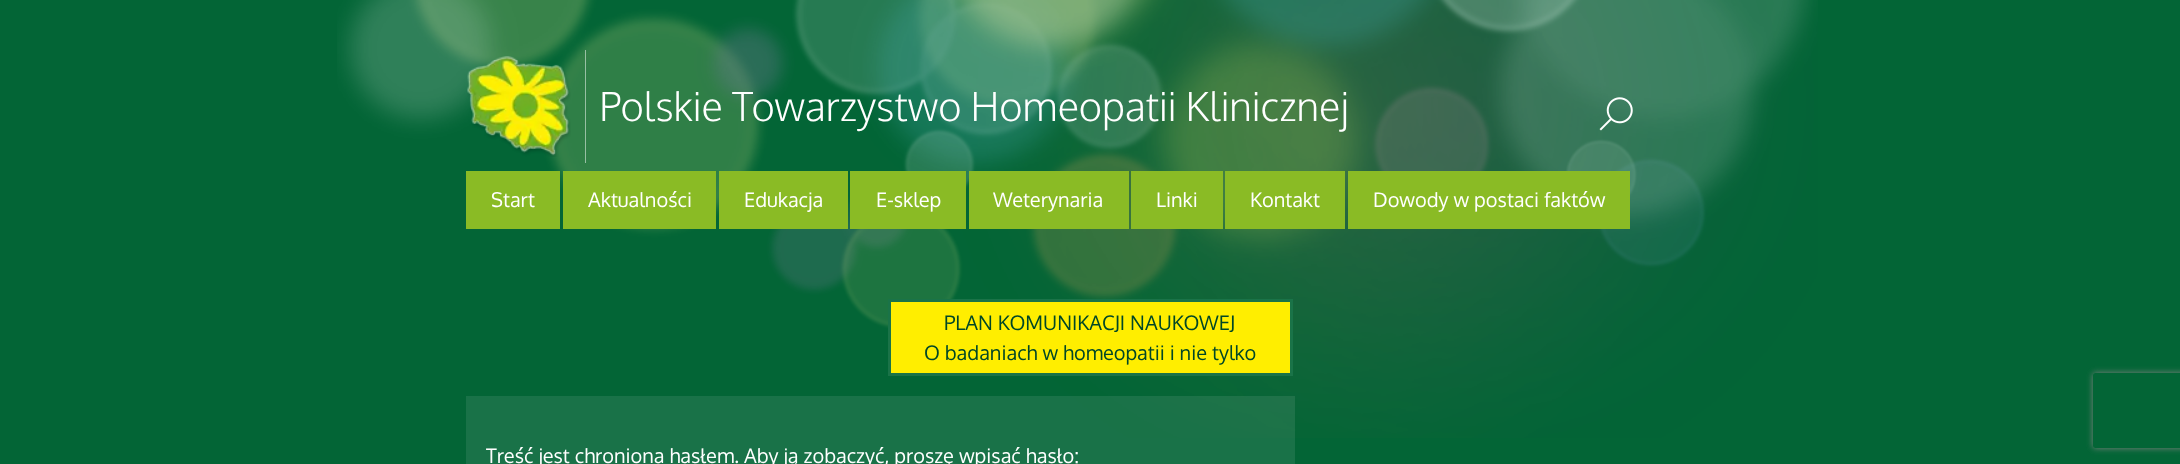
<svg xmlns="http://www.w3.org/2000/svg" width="2180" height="464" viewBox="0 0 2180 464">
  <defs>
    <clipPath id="clip1"><path d="M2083 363H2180V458H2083ZM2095.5 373H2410.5C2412 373 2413 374 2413 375.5V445.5C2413 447 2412 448 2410.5 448H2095.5C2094 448 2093 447 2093 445.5V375.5C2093 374 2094 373 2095.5 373Z" clip-rule="evenodd"/></clipPath>
    <filter id="blur1" x="-50%" y="-200%" width="200%" height="500%"><feGaussianBlur stdDeviation="3"/></filter>
  </defs>
  <rect width="100%" height="100%" fill="#036536"/>
  <image x="337" y="0" width="1481" height="438" href="img1.png"/>
  <image x="467" y="56" width="104" height="101" href="img2.png"/>
  <rect x="585" y="50" width="1" height="113" fill="#ffffff" fill-opacity="0.5"/>
  <text x="599" y="121" font-family="Oxygen" font-size="40" font-weight="300" fill="#ffffff">Polskie Towarzystwo Homeopatii Klinicznej</text>
  <image x="1599" y="97" width="34" height="34" href="img3.png"/>
  <rect x="466" y="171" width="94" height="58" fill="#8abb25"/>
  <text x="491" y="207" font-family="Oxygen" font-size="20" fill="#ffffff">Start</text>
  <rect x="563" y="171" width="153" height="58" fill="#8abb25"/>
  <text x="588" y="207" font-family="Oxygen" font-size="20" fill="#ffffff">Aktualności</text>
  <rect x="719" y="171" width="129" height="58" fill="#8abb25"/>
  <text x="744" y="207" font-family="Oxygen" font-size="20" fill="#ffffff">Edukacja</text>
  <rect x="850" y="171" width="116" height="58" fill="#8abb25"/>
  <text x="876" y="207" font-family="Oxygen" font-size="20" fill="#ffffff">E-sklep</text>
  <rect x="969" y="171" width="160" height="58" fill="#8abb25"/>
  <text x="993" y="207" font-family="Oxygen" font-size="20" fill="#ffffff">Weterynaria</text>
  <rect x="1131" y="171" width="92" height="58" fill="#8abb25"/>
  <text x="1156" y="207" font-family="Oxygen" font-size="20" fill="#ffffff">Linki</text>
  <rect x="1225" y="171" width="120" height="58" fill="#8abb25"/>
  <text x="1250" y="207" font-family="Oxygen" font-size="20" fill="#ffffff">Kontakt</text>
  <rect x="1348" y="171" width="282" height="58" fill="#8abb25"/>
  <text x="1373" y="207" font-family="Oxygen" font-size="20" fill="#ffffff">Dowody w postaci faktów</text>
  <rect x="889.5" y="300.5" width="402" height="74" fill="#ffee00" stroke="#1a7348" stroke-width="3"/>
  <text x="944" y="330" font-family="Oxygen" font-size="20" fill="#004727">PLAN KOMUNIKACJI NAUKOWEJ</text>
  <text x="924" y="360" font-family="Oxygen" font-size="20" fill="#004727">O badaniach w homeopatii i nie tylko</text>
  <rect x="466" y="396" width="829" height="68" fill="#ffffff" fill-opacity="0.09"/>
  <text x="486" y="463" font-family="Oxygen" font-size="20" fill="#ffffff">Treść jest chroniona hasłem. Aby ją zobaczyć, proszę wpisać hasło:</text>
  <g clip-path="url(#clip1)">
    <rect x="2093" y="373" width="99" height="75" rx="2.5" fill="#808080" filter="url(#blur1)"/>
  </g>
</svg>
